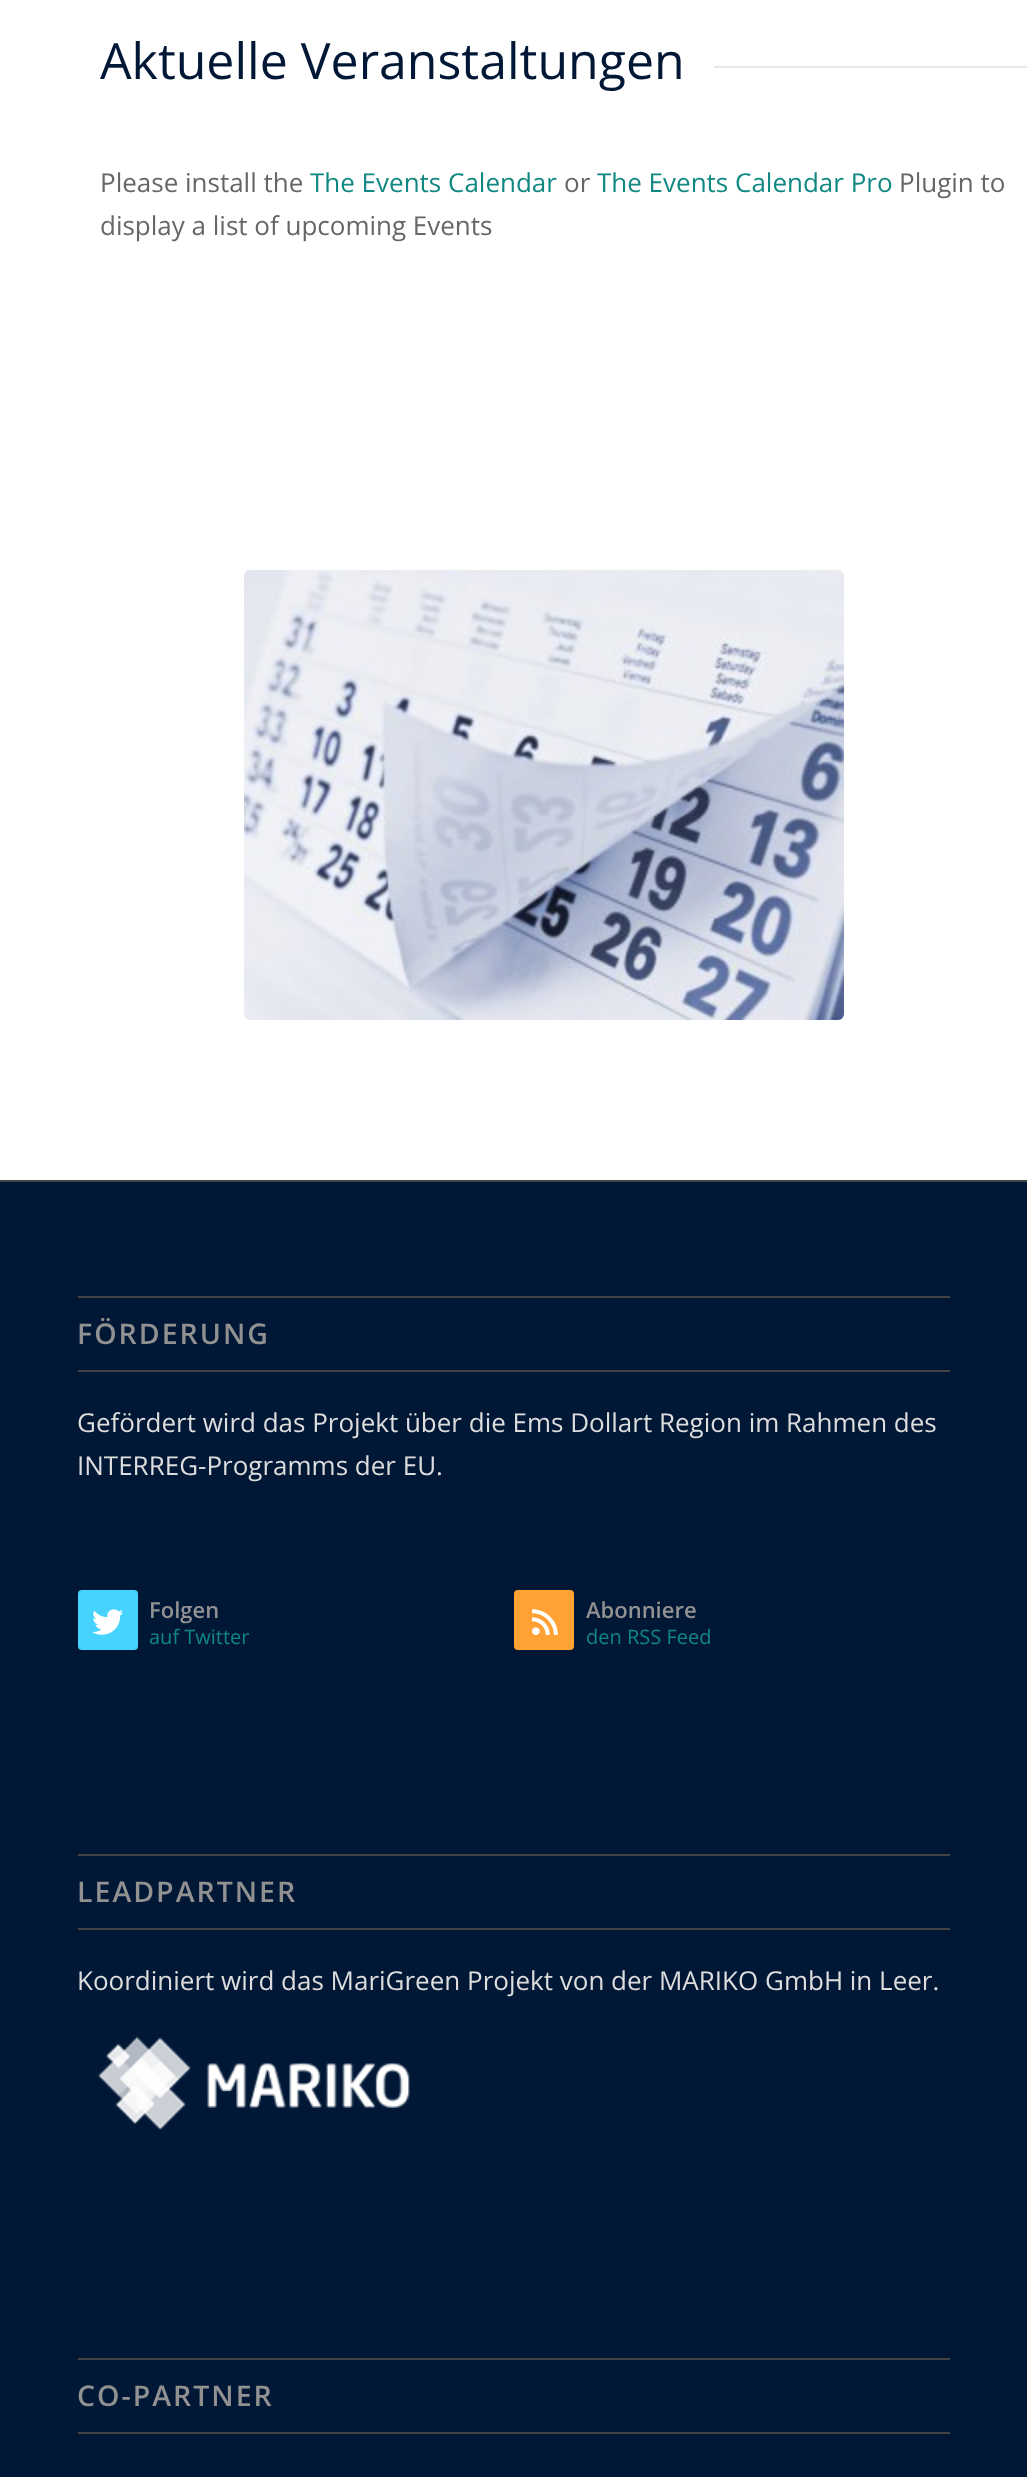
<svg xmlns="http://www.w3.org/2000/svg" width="1027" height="2477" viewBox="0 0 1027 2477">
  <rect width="100%" height="100%" fill="#ffffff"/>
  <text x="100" y="79" font-family="Open Sans" font-size="50" fill="#001836">Aktuelle Veranstaltungen</text>
  <rect x="714" y="66" width="313" height="2" fill="#e8e8e8"/>
  <text x="100" y="192" font-family="Open Sans" font-size="26" fill="#666666">Please install the</text>
  <text x="310" y="192" font-family="Open Sans" font-size="26" fill="#108882">The Events Calendar</text>
  <text x="564" y="192" font-family="Open Sans" font-size="26" fill="#666666">or</text>
  <text x="597" y="192" font-family="Open Sans" font-size="26" fill="#108882">The Events Calendar Pro</text>
  <text x="899" y="192" font-family="Open Sans" font-size="26" fill="#666666">Plugin to</text>
  <text x="100" y="235" font-family="Open Sans" font-size="26" fill="#666666">display a list of upcoming Events</text>
  <image x="244" y="570" width="600" height="450" href="img1.png"/>
  <rect x="0" y="1182" width="1027" height="1295" fill="#001836"/>
  <rect x="0" y="1180" width="1027" height="2" fill="#444444"/>
  <rect x="78" y="1296" width="872" height="2" fill="#444444"/>
  <rect x="78" y="1370" width="872" height="2" fill="#444444"/>
  <text x="77" y="1344" font-family="Open Sans" font-size="28.5" font-weight="600" letter-spacing="2" fill="#919191">FÖRDERUNG</text>
  <text x="77" y="1432" font-family="Open Sans" font-size="26" fill="#dddddd">Gefördert wird das Projekt über die Ems Dollart Region im Rahmen des</text>
  <text x="77" y="1475" font-family="Open Sans" font-size="26" fill="#dddddd">INTERREG-Programms der EU.</text>
  <rect x="78" y="1590" width="60" height="60" rx="4" fill="#46d4fe"/>
  <image x="92" y="1609" width="32" height="26" href="img2.png"/>
  <text x="149" y="1618" font-family="Open Sans" font-size="22" font-weight="600" fill="#919191">Folgen</text>
  <text x="149" y="1644" font-family="Open Sans" font-size="20" fill="#108882">auf Twitter</text>
  <rect x="514" y="1590" width="60" height="60" rx="4" fill="#ffa133"/>
  <image x="532" y="1609" width="26" height="26" href="img3.png"/>
  <text x="586" y="1618" font-family="Open Sans" font-size="22" font-weight="600" fill="#919191">Abonniere</text>
  <text x="586" y="1644" font-family="Open Sans" font-size="20" fill="#108882">den RSS Feed</text>
  <rect x="78" y="1854" width="872" height="2" fill="#444444"/>
  <rect x="78" y="1928" width="872" height="2" fill="#444444"/>
  <text x="77" y="1902" font-family="Open Sans" font-size="28.5" font-weight="600" letter-spacing="2" fill="#919191">LEADPARTNER</text>
  <text x="77" y="1990" font-family="Open Sans" font-size="26" fill="#dddddd">Koordiniert wird das MariGreen Projekt von der MARIKO GmbH in Leer.</text>
  <image x="97" y="2036" width="313" height="94" href="img4.png"/>
  <rect x="78" y="2358" width="872" height="2" fill="#444444"/>
  <rect x="78" y="2432" width="872" height="2" fill="#444444"/>
  <text x="77" y="2406" font-family="Open Sans" font-size="28.5" font-weight="600" letter-spacing="2" fill="#919191">CO-PARTNER</text>
</svg>
